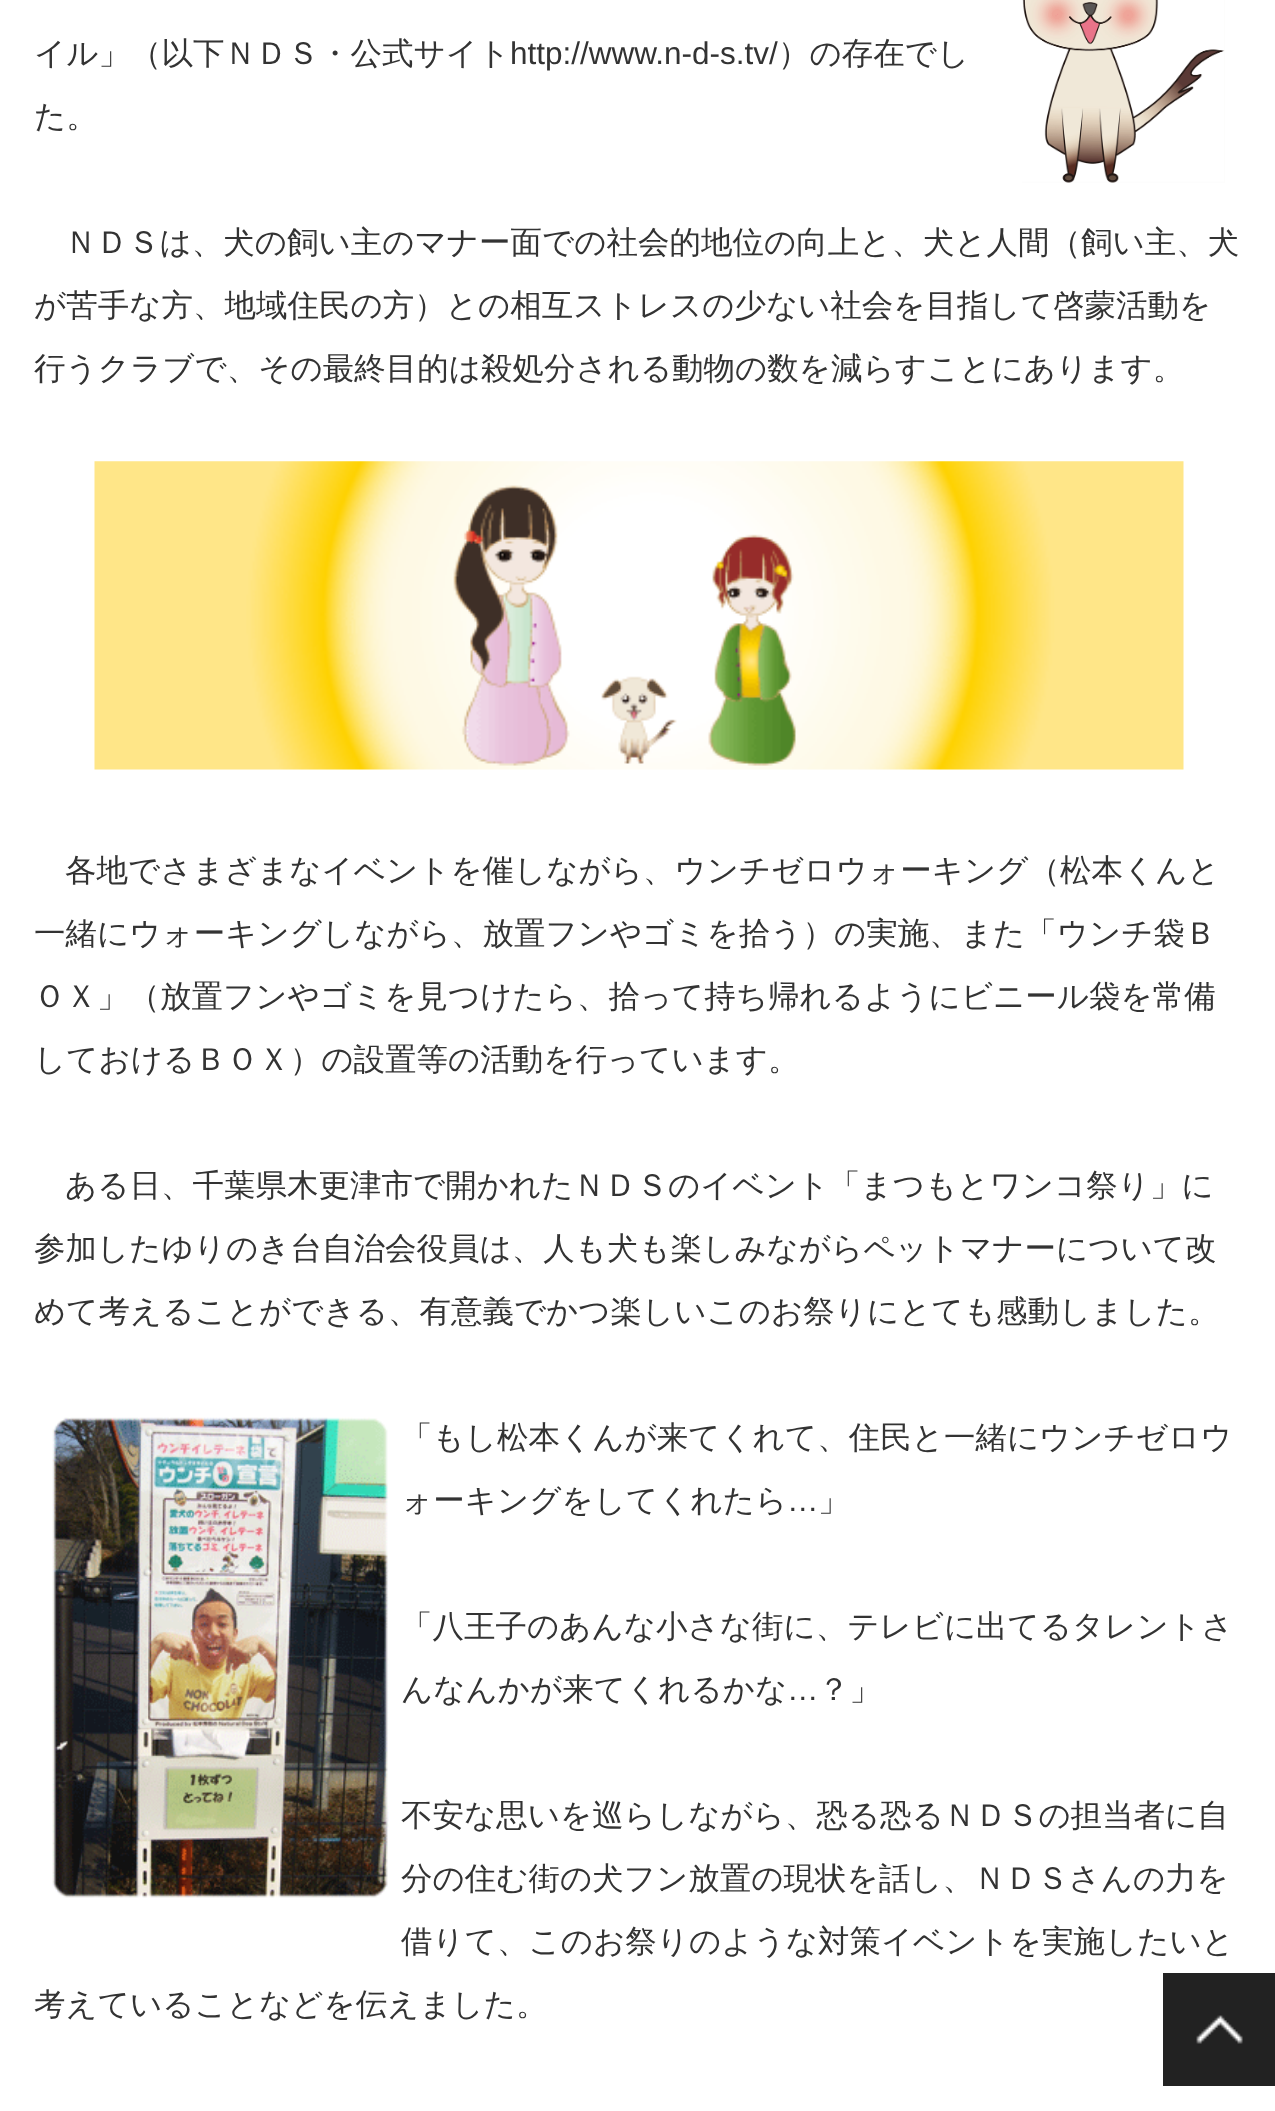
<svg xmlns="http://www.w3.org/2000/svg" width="1275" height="2111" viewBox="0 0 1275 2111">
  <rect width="100%" height="100%" fill="#ffffff"/>
  <text x="34" y="64" font-family="WenQuanYi Zen Hei" font-size="31.5" font-weight="500" fill="#333333">イル」（以下ＮＤＳ・公式サイト</text>
  <text x="510" y="64" font-family="Liberation Sans" font-size="31.5" fill="#333333">http://www.n-d-s.tv/</text>
  <text x="778" y="64" font-family="WenQuanYi Zen Hei" font-size="31.5" font-weight="500" fill="#333333">）の存在でし</text>
  <image x="1022" y="0" width="203" height="183" href="img1.png"/>
  <text x="34" y="127" font-family="WenQuanYi Zen Hei" font-size="31.5" font-weight="500" fill="#333333">た。</text>
  <text x="65" y="253" font-family="WenQuanYi Zen Hei" font-size="31.5" font-weight="500" fill="#333333">ＮＤＳは、犬の飼い主のマナー面での社会的地位の向上と、犬と人間（飼い主、犬</text>
  <text x="34" y="316" font-family="WenQuanYi Zen Hei" font-size="31.5" font-weight="500" fill="#333333">が苦手な方、地域住民の方）との相互ストレスの少ない社会を目指して啓蒙活動を</text>
  <text x="34" y="379" font-family="WenQuanYi Zen Hei" font-size="31.5" font-weight="500" fill="#333333">行うクラブで、その最終目的は殺処分される動物の数を減らすことにあります。</text>
  <image x="94" y="461" width="1090" height="309" href="img2.png"/>
  <text x="65" y="881" font-family="WenQuanYi Zen Hei" font-size="31.5" font-weight="500" fill="#333333">各地でさまざまなイベントを催しながら、ウンチゼロウォーキング（松本くんと</text>
  <text x="34" y="944" font-family="WenQuanYi Zen Hei" font-size="31.5" font-weight="500" fill="#333333">一緒にウォーキングしながら、放置フンやゴミを拾う）の実施、また「ウンチ袋Ｂ</text>
  <text x="34" y="1007" font-family="WenQuanYi Zen Hei" font-size="31.5" font-weight="500" fill="#333333">ＯＸ」（放置フンやゴミを見つけたら、拾って持ち帰れるようにビニール袋を常備</text>
  <text x="34" y="1070" font-family="WenQuanYi Zen Hei" font-size="31.5" font-weight="500" fill="#333333">しておけるＢＯＸ）の設置等の活動を行っています。</text>
  <text x="65" y="1196" font-family="WenQuanYi Zen Hei" font-size="31.5" font-weight="500" fill="#333333">ある日、千葉県木更津市で開かれたＮＤＳのイベント「まつもとワンコ祭り」に</text>
  <text x="34" y="1259" font-family="WenQuanYi Zen Hei" font-size="31.5" font-weight="500" fill="#333333">参加したゆりのき台自治会役員は、人も犬も楽しみながらペットマナーについて改</text>
  <text x="34" y="1322" font-family="WenQuanYi Zen Hei" font-size="31.5" font-weight="500" fill="#333333">めて考えることができる、有意義でかつ楽しいこのお祭りにとても感動しました。</text>
  <image x="52" y="1417" width="337" height="481" href="img3.png"/>
  <text x="401" y="1448" font-family="WenQuanYi Zen Hei" font-size="31.5" font-weight="500" fill="#333333">「もし松本くんが来てくれて、住民と一緒にウンチゼロウ</text>
  <text x="401" y="1511" font-family="WenQuanYi Zen Hei" font-size="31.5" font-weight="500" fill="#333333">ォーキングをしてくれたら</text>
  <text x="787" y="1511" font-family="Liberation Sans" font-size="31.5" fill="#333333">…</text>
  <text x="818" y="1511" font-family="WenQuanYi Zen Hei" font-size="31.5" font-weight="500" fill="#333333">」</text>
  <text x="401" y="1637" font-family="WenQuanYi Zen Hei" font-size="31.5" font-weight="500" fill="#333333">「八王子のあんな小さな街に、テレビに出てるタレントさ</text>
  <text x="401" y="1700" font-family="WenQuanYi Zen Hei" font-size="31.5" font-weight="500" fill="#333333">んなんかが来てくれるかな</text>
  <text x="787" y="1700" font-family="Liberation Sans" font-size="31.5" fill="#333333">…</text>
  <text x="818" y="1700" font-family="WenQuanYi Zen Hei" font-size="31.5" font-weight="500" fill="#333333">？」</text>
  <text x="401" y="1826" font-family="WenQuanYi Zen Hei" font-size="31.5" font-weight="500" fill="#333333">不安な思いを巡らしながら、恐る恐るＮＤＳの担当者に自</text>
  <text x="401" y="1889" font-family="WenQuanYi Zen Hei" font-size="31.5" font-weight="500" fill="#333333">分の住む街の犬フン放置の現状を話し、ＮＤＳさんの力を</text>
  <text x="401" y="1952" font-family="WenQuanYi Zen Hei" font-size="31.5" font-weight="500" fill="#333333">借りて、このお祭りのような対策イベントを実施したいと</text>
  <text x="34" y="2015" font-family="WenQuanYi Zen Hei" font-size="31.5" font-weight="500" fill="#333333">考えていることなどを伝えました。</text>
  <rect x="1163" y="1973" width="112" height="113" fill="#222222"/>
  <image x="1196" y="2015" width="47" height="29" href="img4.png"/>
</svg>
